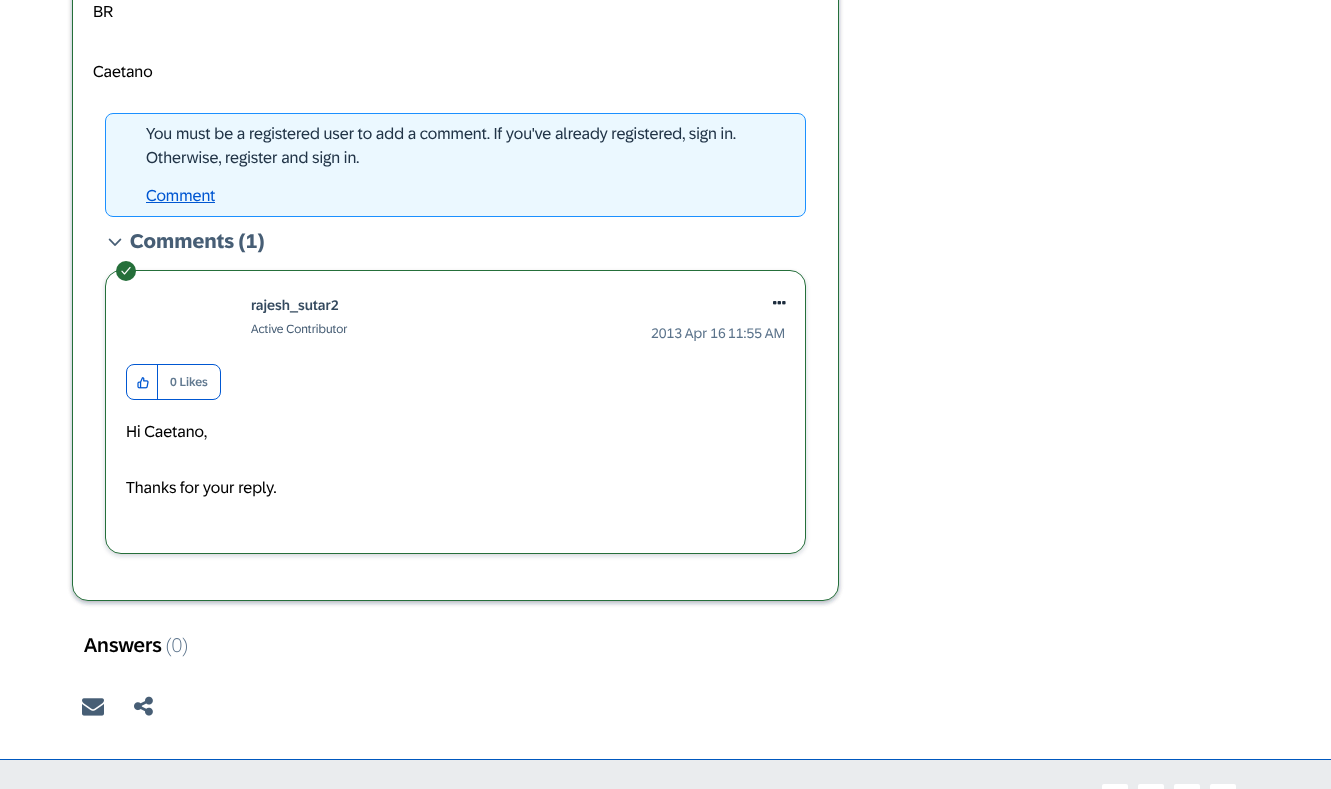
<svg xmlns="http://www.w3.org/2000/svg" width="1331" height="789" viewBox="0 0 1331 789">
  <defs>
    <filter id="blur1" x="-50%" y="-200%" width="200%" height="500%"><feGaussianBlur stdDeviation="2"/></filter>
  </defs>
  <rect width="100%" height="100%" fill="#ffffff"/>
  <rect x="72" y="-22" width="767" height="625" rx="16" fill="#223649" fill-opacity="0.2" filter="url(#blur1)"/>
  <rect x="72" y="-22" width="767" height="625" rx="16" fill="#223649" fill-opacity="0.2" filter="url(#blur1)"/>
  <rect x="72.5" y="-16.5" width="766" height="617" rx="15.5" fill="#ffffff" stroke="#256f3a"/>
  <text x="93" y="17" font-family="'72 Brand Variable'" font-size="16" fill="#000000">BR</text>
  <text x="93" y="77" font-family="'72 Brand Variable'" font-size="16" fill="#000000">Caetano</text>
  <rect x="105.5" y="113.5" width="700" height="103" rx="7.5" fill="#ebf8ff" stroke="#1b90ff"/>
  <text x="146" y="139" font-family="'72 Brand Variable'" font-size="16" fill="#223548">You must be a registered user to add a comment. If you've already registered, sign in.</text>
  <text x="146" y="163" font-family="'72 Brand Variable'" font-size="16" fill="#223548">Otherwise, register and sign in.</text>
  <text x="146" y="201" font-family="'72 Brand Variable'" font-size="16" fill="#0057d2">Comment</text>
  <rect x="146" y="202" width="69" height="1" fill="#0057d2"/>
  <image x="108" y="238" width="14" height="8" href="img1.png"/>
  <text x="130" y="248" font-family="'72 Brand Variable'" font-size="20" font-weight="bold" fill="#475e75">Comments (1)</text>
  <rect x="105" y="272" width="701" height="284" rx="16" fill="#223649" fill-opacity="0.2" filter="url(#blur1)"/>
  <rect x="105.5" y="270.5" width="700" height="283" rx="15.5" fill="#ffffff" stroke="#256f3a"/>
  <circle cx="126" cy="271" r="10" fill="#256f3a"/>
  <image x="121" y="266" width="10" height="9" href="img2.png"/>
  <text x="251" y="310" font-family="'72 Brand Variable'" font-size="14" font-weight="500" fill="#354a5f">rajesh_sutar2</text>
  <text x="251" y="333" font-family="'72 Brand Variable'" font-size="12" fill="#475e75">Active Contributor</text>
  <image x="773" y="301" width="13" height="4" href="img3.png"/>
  <text x="651" y="338" font-family="'72 Brand Variable'" font-size="14" fill="#5b738b">2013 Apr 16</text>
  <text x="728" y="338" font-family="'72 Brand Variable'" font-size="14" fill="#5b738b">11:55 AM</text>
  <rect x="126.5" y="364.5" width="94" height="35" rx="7.5" fill="none" stroke="#0057d2"/>
  <rect x="157" y="365" width="1" height="35" fill="#0057d2"/>
  <image x="137" y="377" width="12" height="12" href="img4.png"/>
  <text x="170" y="386" font-family="'72 Brand Variable'" font-size="12" font-weight="500" fill="#617990">0 Likes</text>
  <text x="126" y="437" font-family="'72 Brand Variable'" font-size="16" fill="#000000">Hi Caetano,</text>
  <text x="126" y="493" font-family="'72 Brand Variable'" font-size="16" fill="#000000">Thanks for your reply.</text>
  <text x="84" y="652" font-family="'72 Brand Variable'" font-size="20" font-weight="500" fill="#000000">Answers</text>
  <text x="166" y="652" font-family="'72 Brand Variable'" font-size="20" font-weight="300" fill="#5b738b">(0)</text>
  <image x="82" y="698" width="22" height="18" href="img5.png"/>
  <image x="134" y="696" width="19" height="20" href="img6.png"/>
  <rect x="0" y="759" width="1331" height="1" fill="#0058bf"/>
  <rect x="0" y="760" width="1331" height="29" fill="#eaecee"/>
  <rect x="1102" y="784" width="26" height="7" rx="2" fill="#ffffff"/>
  <rect x="1138" y="784" width="26" height="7" rx="2" fill="#ffffff"/>
  <rect x="1174" y="784" width="26" height="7" rx="2" fill="#ffffff"/>
  <rect x="1210" y="784" width="26" height="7" rx="2" fill="#ffffff"/>
</svg>
